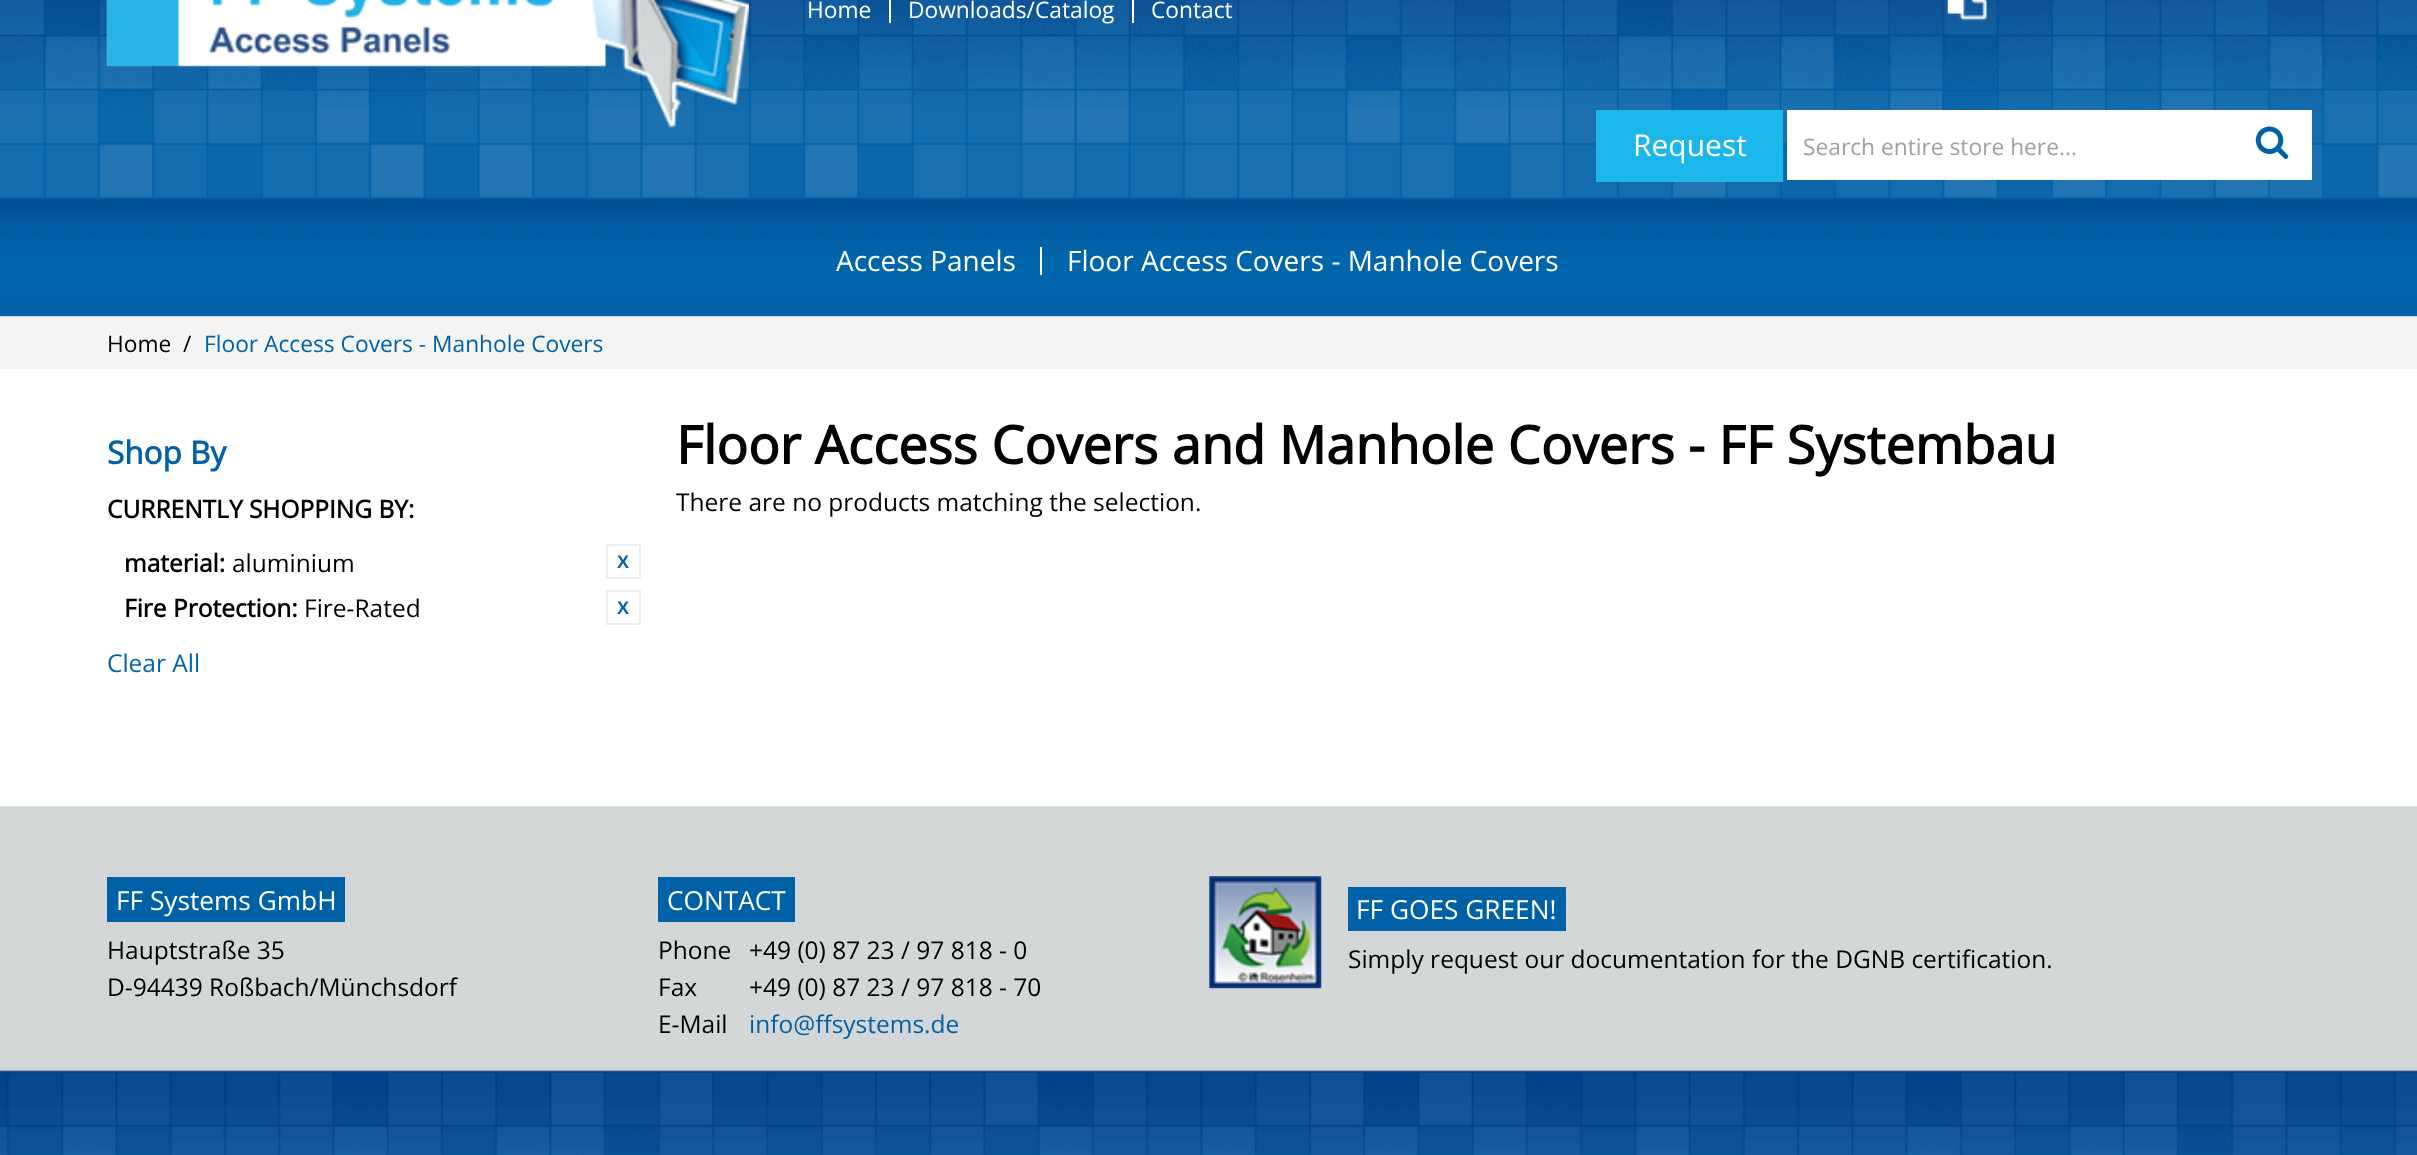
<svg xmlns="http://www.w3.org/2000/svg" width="2417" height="1155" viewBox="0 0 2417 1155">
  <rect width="100%" height="100%" fill="#ffffff"/>
  <image x="0" y="0" width="2417" height="317" href="img1.png"/>
  <image x="106" y="0" width="643" height="128" href="img2.png"/>
  <rect x="889" y="0" width="2" height="23" fill="#ffffff"/>
  <text x="807" y="18" font-family="Open Sans" font-size="22.75" fill="#ffffff">Home</text>
  <rect x="1132" y="0" width="2" height="23" fill="#ffffff"/>
  <text x="908" y="18" font-family="Open Sans" font-size="22.75" fill="#ffffff">Downloads/Catalog</text>
  <text x="1151" y="18" font-family="Open Sans" font-size="22.75" fill="#ffffff">Contact</text>
  <image x="1947" y="0" width="41" height="21" href="img3.png"/>
  <rect x="1596" y="110" width="187" height="72" fill="#1bb7ea"/>
  <text x="1633" y="156" font-family="Open Sans" font-size="30" fill="#ffffff">Request</text>
  <rect x="1787" y="110" width="525" height="70" fill="#ffffff"/>
  <text x="1803" y="155" font-family="Open Sans" font-size="22.75" fill="#a0a0a0">Search entire store here...</text>
  <image x="2255" y="126" width="34" height="33" href="img4.png"/>
  <rect x="1040" y="247" width="2" height="28" fill="#ffffff"/>
  <text x="836" y="271" font-family="Open Sans" font-size="28" fill="#ffffff">Access Panels</text>
  <text x="1067" y="271" font-family="Open Sans" font-size="28" fill="#ffffff">Floor Access Covers - Manhole Covers</text>
  <rect x="0" y="317" width="2417" height="52" fill="#f4f4f4"/>
  <text x="107" y="352" font-family="Open Sans" font-size="22.75" fill="#000000">Home</text>
  <text x="183" y="352" font-family="Open Sans" font-size="22.75" fill="#000000">/</text>
  <text x="204" y="352" font-family="Open Sans" font-size="22.75" fill="#0161a7">Floor Access Covers - Manhole Covers</text>
  <text x="107" y="464" font-family="Open Sans" font-size="31.5" font-weight="bold" fill="#0161a7">Shop By</text>
  <text x="107" y="518" font-family="Open Sans" font-size="24.5" font-weight="bold" fill="#000000">CURRENTLY SHOPPING BY:</text>
  <text x="124" y="572" font-family="Open Sans" font-size="24.5" font-weight="bold" fill="#000000">material:</text>
  <text x="232" y="572" font-family="Open Sans" font-size="24.5" fill="#000000">aluminium</text>
  <rect x="607" y="545" width="33" height="33" fill="none" stroke="#ededed" stroke-width="2"/>
  <text x="617" y="568" font-family="Liberation Sans" font-size="18" font-weight="bold" fill="#0161a7">X</text>
  <text x="124" y="617" font-family="Open Sans" font-size="24.5" font-weight="bold" fill="#000000">Fire Protection:</text>
  <text x="304" y="617" font-family="Open Sans" font-size="24.5" fill="#000000">Fire-Rated</text>
  <rect x="607" y="591" width="33" height="33" fill="none" stroke="#ededed" stroke-width="2"/>
  <text x="617" y="614" font-family="Liberation Sans" font-size="18" font-weight="bold" fill="#0161a7">X</text>
  <text x="107" y="672" font-family="Open Sans" font-size="24.5" fill="#0161a7">Clear All</text>
  <text x="676" y="464" font-family="Open Sans" font-size="52.5" font-weight="bold" fill="#000000">Floor Access Covers and Manhole Covers - FF Systembau</text>
  <text x="676" y="511" font-family="Open Sans" font-size="24.5" fill="#000000">There are no products matching the selection.</text>
  <image x="0" y="806" width="2417" height="349" href="img5.png"/>
  <rect x="107" y="877" width="238" height="45" fill="#0161a7"/>
  <text x="116" y="910" font-family="Open Sans" font-size="26.25" fill="#ffffff">FF Systems GmbH</text>
  <text x="107" y="959" font-family="Open Sans" font-size="24.5" fill="#000000">Hauptstraße 35</text>
  <text x="107" y="996" font-family="Open Sans" font-size="24.5" fill="#000000">D-94439 Roßbach/Münchsdorf</text>
  <rect x="658" y="877" width="137" height="45" fill="#0161a7"/>
  <text x="667" y="910" font-family="Open Sans" font-size="26.25" fill="#ffffff">CONTACT</text>
  <text x="658" y="959" font-family="Open Sans" font-size="24.5" fill="#000000">Phone</text>
  <text x="749" y="959" font-family="Open Sans" font-size="24.5" fill="#000000">+49 (0) 87 23 / 97 818 - 0</text>
  <text x="658" y="996" font-family="Open Sans" font-size="24.5" fill="#000000">Fax</text>
  <text x="749" y="996" font-family="Open Sans" font-size="24.5" fill="#000000">+49 (0) 87 23 / 97 818 - 70</text>
  <text x="658" y="1033" font-family="Open Sans" font-size="24.5" fill="#000000">E-Mail</text>
  <text x="749" y="1033" font-family="Open Sans" font-size="24.5" fill="#0161a7">info@ffsystems.de</text>
  <image x="1209" y="876" width="113" height="113" href="img6.png"/>
  <rect x="1348" y="887" width="218" height="44" fill="#0161a7"/>
  <text x="1356" y="919" font-family="Open Sans" font-size="26.25" fill="#ffffff">FF GOES GREEN!</text>
  <text x="1348" y="968" font-family="Open Sans" font-size="24.5" fill="#000000">Simply request our documentation for the DGNB certification.</text>
</svg>
